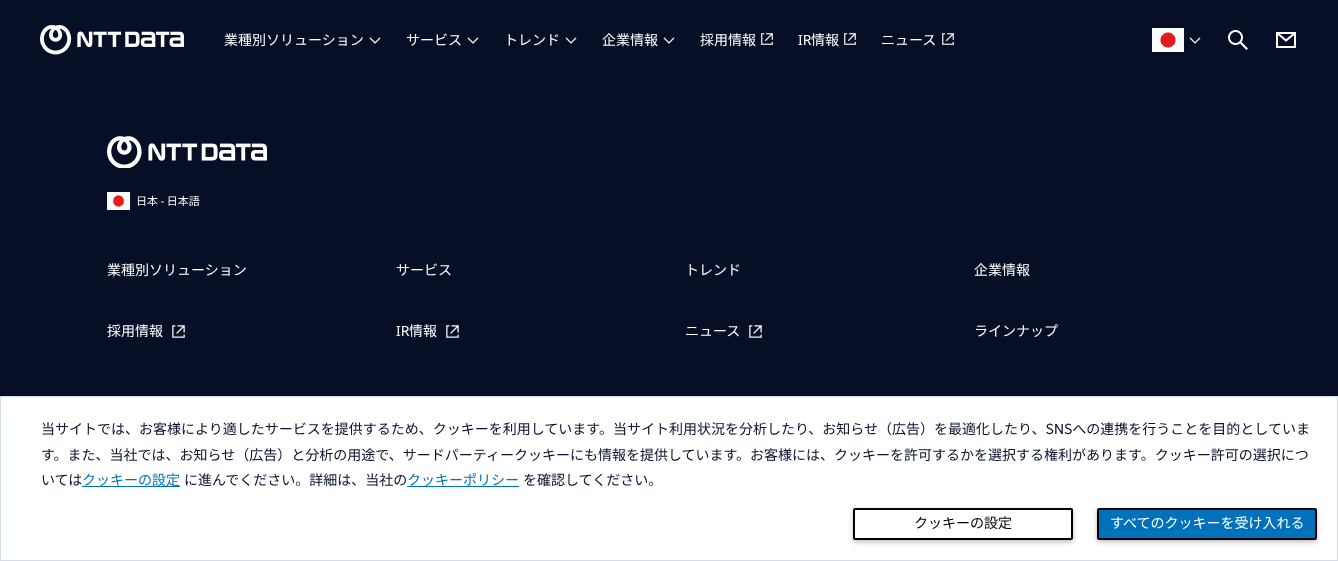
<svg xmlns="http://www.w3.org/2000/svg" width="1338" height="561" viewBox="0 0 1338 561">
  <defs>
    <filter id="blur1" x="-50%" y="-200%" width="200%" height="500%"><feGaussianBlur stdDeviation="2.5"/></filter>
  </defs>
  <rect width="100%" height="100%" fill="#070f26"/>
  <image x="40" y="25" width="144" height="30" href="img1.png"/>
  <text x="224" y="45" font-family="Noto Sans JP" font-size="14" font-weight="100" fill="#ffffff">業種別ソリューション</text>
  <image x="369" y="37" width="12" height="7" href="img2.png"/>
  <text x="406" y="45" font-family="Noto Sans JP" font-size="14" font-weight="100" fill="#ffffff">サービス</text>
  <image x="467" y="37" width="12" height="7" href="img2.png"/>
  <text x="504" y="45" font-family="Noto Sans JP" font-size="14" font-weight="100" fill="#ffffff">トレンド</text>
  <image x="565" y="37" width="12" height="7" href="img2.png"/>
  <text x="602" y="45" font-family="Noto Sans JP" font-size="14" font-weight="100" fill="#ffffff">企業情報</text>
  <image x="663" y="37" width="12" height="7" href="img2.png"/>
  <text x="700" y="45" font-family="Noto Sans JP" font-size="14" font-weight="100" fill="#ffffff">採用情報</text>
  <image x="761" y="33" width="12" height="12" href="img3.png"/>
  <text x="798" y="45" font-family="Noto Sans" font-size="14" fill="#ffffff">IR</text>
  <text x="811" y="45" font-family="Noto Sans JP" font-size="14" font-weight="100" fill="#ffffff">情報</text>
  <image x="844" y="33" width="12" height="12" href="img3.png"/>
  <text x="881" y="45" font-family="Noto Sans JP" font-size="14" font-weight="100" fill="#ffffff">ニュース</text>
  <image x="942" y="33" width="12" height="12" href="img3.png"/>
  <image x="1152" y="28" width="32" height="24" href="img4.png"/>
  <image x="1189" y="37" width="12" height="7" href="img2.png"/>
  <image x="1228" y="30" width="20" height="20" href="img5.png"/>
  <image x="1276" y="32" width="20" height="16" href="img6.png"/>
  <image x="107" y="136" width="160" height="32" href="img7.png"/>
  <image x="107" y="192" width="23" height="18" href="img8.png"/>
  <text x="136" y="205" font-family="Noto Sans JP" font-size="11" font-weight="100" fill="#ffffff">日本 - 日本語</text>
  <text x="107" y="275" font-family="Noto Sans JP" font-size="14" font-weight="100" fill="#ffffff">業種別ソリューション</text>
  <text x="396" y="275" font-family="Noto Sans JP" font-size="14" font-weight="100" fill="#ffffff">サービス</text>
  <text x="685" y="275" font-family="Noto Sans JP" font-size="14" font-weight="100" fill="#ffffff">トレンド</text>
  <text x="974" y="275" font-family="Noto Sans JP" font-size="14" font-weight="100" fill="#ffffff">企業情報</text>
  <text x="107" y="336" font-family="Noto Sans JP" font-size="14" font-weight="100" fill="#ffffff">採用情報</text>
  <image x="172" y="325" width="13" height="13" href="img9.png"/>
  <text x="396" y="336" font-family="Noto Sans" font-size="14" fill="#ffffff">IR</text>
  <text x="409" y="336" font-family="Noto Sans JP" font-size="14" font-weight="100" fill="#ffffff">情報</text>
  <image x="446" y="325" width="13" height="13" href="img9.png"/>
  <text x="685" y="336" font-family="Noto Sans JP" font-size="14" font-weight="100" fill="#ffffff">ニュース</text>
  <image x="749" y="325" width="13" height="13" href="img9.png"/>
  <text x="974" y="336" font-family="Noto Sans JP" font-size="14" font-weight="100" fill="#ffffff">ラインナップ</text>
  <rect x="0.5" y="396.5" width="1337" height="164" fill="#ffffff" stroke="#d5ddeb"/>
  <text x="41" y="434" font-family="Noto Sans JP" font-size="14" font-weight="100" fill="#08122e">当サイトでは、お客様により適したサービスを提供するため、クッキーを利用しています。当サイト利用状況を分析したり、お知らせ（広告）を最適化したり、S</text>
  <text x="1054" y="434" font-family="Roboto" font-size="14" fill="#08122e">N</text>
  <text x="1064" y="434" font-family="Noto Sans JP" font-size="14" font-weight="100" fill="#08122e">Sへの連携を行うことを目的としていま</text>
  <text x="41" y="460" font-family="Noto Sans JP" font-size="14" font-weight="100" fill="#08122e">す。また、当社では、お知らせ（広告）と分析の用途で、サードパーティークッキーにも情報を提供しています。お客様には、クッキーを許可するかを選択する権利があります。クッキー許可の選択につ</text>
  <text x="41" y="485" font-family="Noto Sans JP" font-size="14" font-weight="100" fill="#08122e">いては</text>
  <rect x="82" y="486" width="98" height="1" fill="#0072bc"/>
  <text x="82" y="485" font-family="Noto Sans JP" font-size="14" font-weight="100" fill="#0072bc">クッキーの設定</text>
  <text x="184" y="485" font-family="Noto Sans JP" font-size="14" font-weight="100" fill="#08122e">に進んでください。詳細は、当社の</text>
  <rect x="407" y="486" width="112" height="1" fill="#0072bc"/>
  <text x="407" y="485" font-family="Noto Sans JP" font-size="14" font-weight="100" fill="#0072bc">クッキーポリシー</text>
  <text x="523" y="485" font-family="Noto Sans JP" font-size="14" font-weight="100" fill="#08122e">を確認してください。</text>
  <rect x="853" y="510" width="220" height="32" rx="2" fill="#000000" fill-opacity="0.26" filter="url(#blur1)"/>
  <rect x="854" y="509" width="218" height="30" rx="1" fill="#ffffff" stroke="#000000" stroke-width="2"/>
  <text x="914" y="528" font-family="Noto Sans JP" font-size="14" font-weight="100" fill="#000000">クッキーの設定</text>
  <rect x="1097" y="510" width="220" height="32" rx="2" fill="#000000" fill-opacity="0.26" filter="url(#blur1)"/>
  <rect x="1098" y="509" width="218" height="30" rx="1" fill="#0072bc" stroke="#000000" stroke-width="2"/>
  <text x="1110" y="528" font-family="Noto Sans JP" font-size="14" font-weight="100" fill="#ffffff">すべてのクッキーを受け入れる</text>
</svg>
